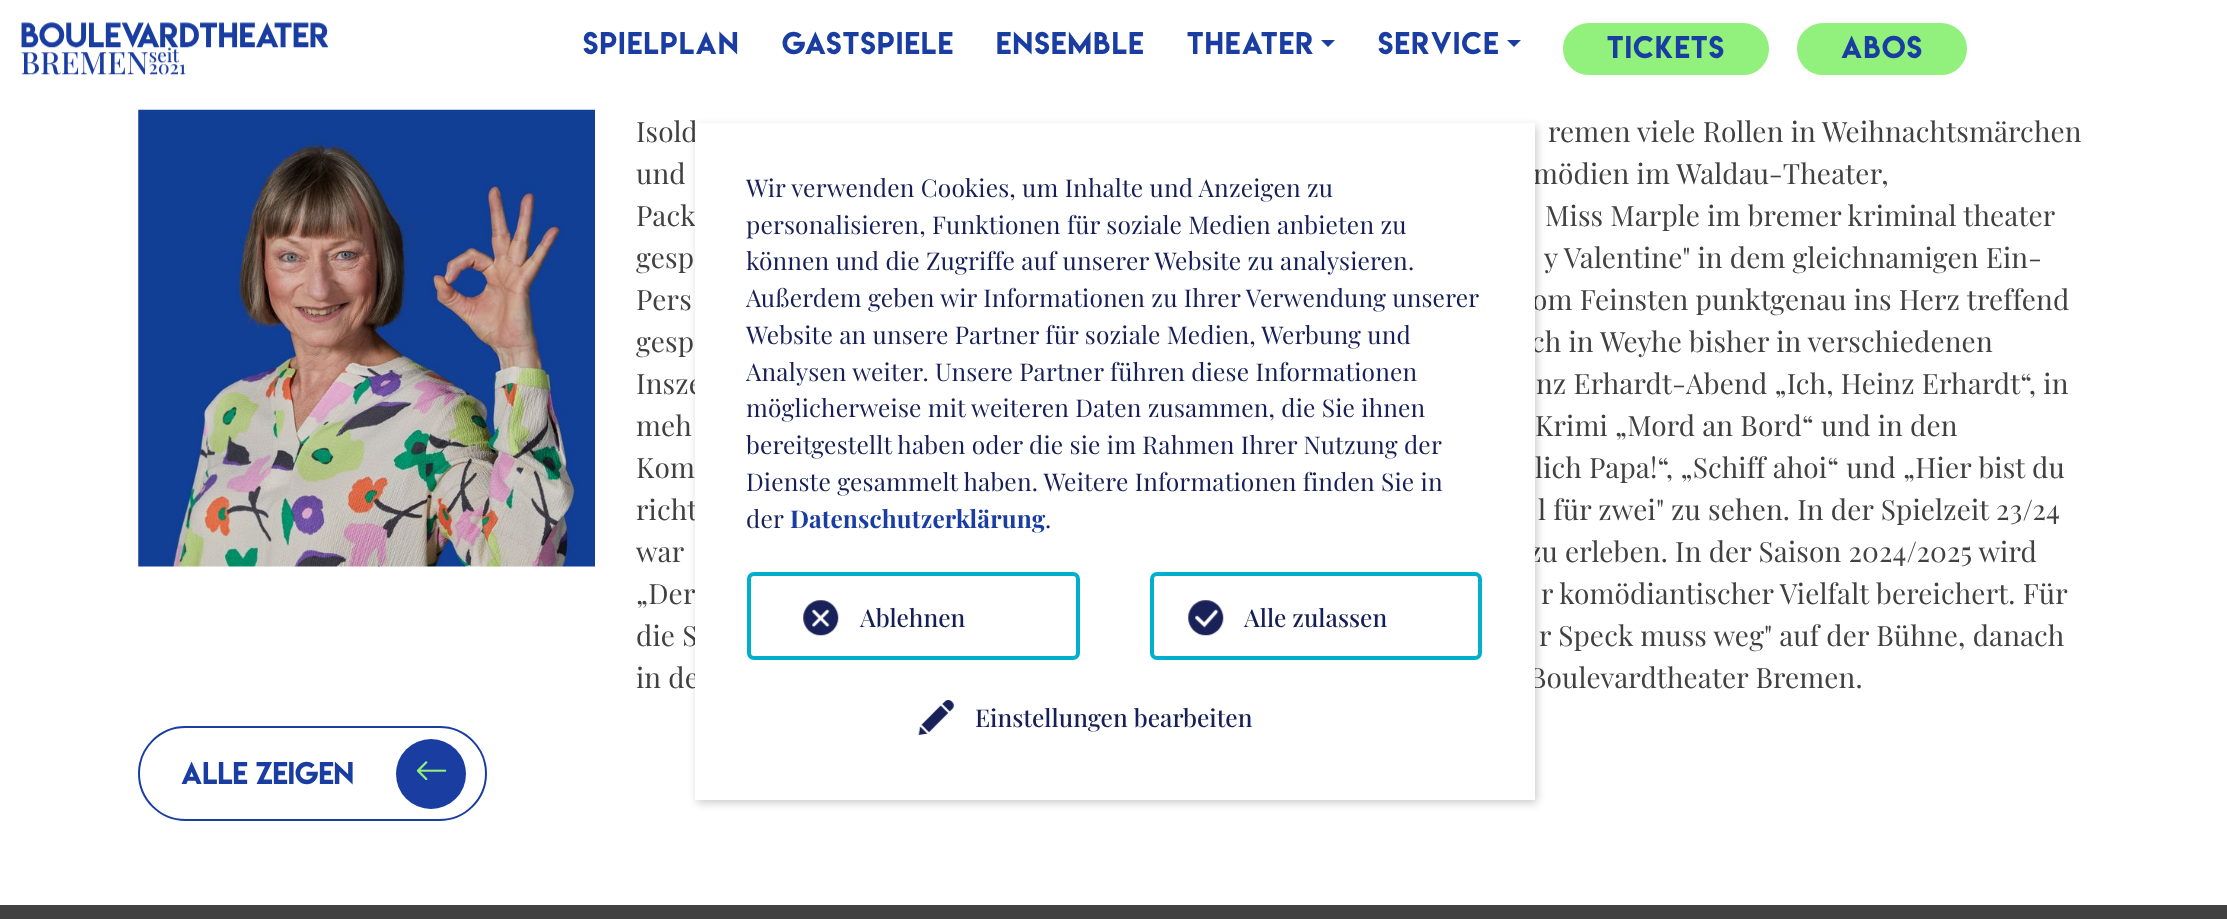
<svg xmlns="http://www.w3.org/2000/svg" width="2227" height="919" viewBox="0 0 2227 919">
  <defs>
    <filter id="blur1" x="-50%" y="-200%" width="200%" height="500%"><feGaussianBlur stdDeviation="4.5"/></filter>
  </defs>
  <rect width="100%" height="100%" fill="#ffffff"/>
  <image x="21" y="22" width="308" height="54" href="img1.png"/>
  <text x="583" y="54" font-family="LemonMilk" font-size="28" letter-spacing="1.4" fill="#1a3da2">Spielplan</text>
  <text x="782" y="54" font-family="LemonMilk" font-size="28" letter-spacing="1.4" fill="#1a3da2">Gastspiele</text>
  <text x="996" y="54" font-family="LemonMilk" font-size="28" letter-spacing="1.4" fill="#1a3da2">Ensemble</text>
  <text x="1187" y="54" font-family="LemonMilk" font-size="28" letter-spacing="1.4" fill="#1a3da2">Theater</text>
  <path d="M1321 40H1335L1328 47Z" fill="#1a3da2"/>
  <text x="1378" y="54" font-family="LemonMilk" font-size="28" letter-spacing="1.4" fill="#1a3da2">Service</text>
  <path d="M1507 40H1521L1514 47Z" fill="#1a3da2"/>
  <rect x="1564" y="24" width="204" height="50" rx="25" fill="#91f17c" stroke="#91f17c" stroke-width="2"/>
  <text x="1607" y="58" font-family="LemonMilk" font-size="28" letter-spacing="1.4" fill="#1a3da2">Tickets</text>
  <rect x="1798" y="24" width="168" height="50" rx="25" fill="#91f17c" stroke="#91f17c" stroke-width="2"/>
  <text x="1841" y="58" font-family="LemonMilk" font-size="28" letter-spacing="1.4" fill="#1a3da2">Abos</text>
  <image x="138" y="109" width="457" height="458" href="img2.png"/>
  <text x="636" y="142" font-family="Playfair Display" font-size="28" letter-spacing="0.15" fill="#414141">Isold</text>
  <text x="1548" y="142" font-family="Playfair Display" font-size="28" letter-spacing="0.15" fill="#414141">remen viele Rollen in Weihnachtsmärchen</text>
  <text x="636" y="184" font-family="Playfair Display" font-size="28" letter-spacing="0.15" fill="#414141">und</text>
  <text x="1533" y="184" font-family="Playfair Display" font-size="28" letter-spacing="0.15" fill="#414141">mödien im Waldau-Theater,</text>
  <text x="636" y="226" font-family="Playfair Display" font-size="28" letter-spacing="0.15" fill="#414141">Pack</text>
  <text x="1545" y="226" font-family="Playfair Display" font-size="28" letter-spacing="0.15" fill="#414141">Miss Marple im bremer kriminal theater</text>
  <text x="636" y="268" font-family="Playfair Display" font-size="28" letter-spacing="0.15" fill="#414141">gesp</text>
  <text x="1544" y="268" font-family="Playfair Display" font-size="28" letter-spacing="0.15" fill="#414141">y Valentine" in dem gleichnamigen Ein-</text>
  <text x="636" y="310" font-family="Playfair Display" font-size="28" letter-spacing="0.15" fill="#414141">Pers</text>
  <text x="1532" y="310" font-family="Playfair Display" font-size="28" letter-spacing="0.15" fill="#414141">om Feinsten punktgenau ins Herz treffend</text>
  <text x="636" y="352" font-family="Playfair Display" font-size="28" letter-spacing="0.15" fill="#414141">gesp</text>
  <text x="1531" y="352" font-family="Playfair Display" font-size="28" letter-spacing="0.15" fill="#414141">ch in Weyhe bisher in verschiedenen</text>
  <text x="636" y="394" font-family="Playfair Display" font-size="28" letter-spacing="0.15" fill="#414141">Insze</text>
  <text x="1536" y="394" font-family="Playfair Display" font-size="28" letter-spacing="0.15" fill="#414141">nz Erhardt-Abend „Ich, Heinz Erhardt“, in</text>
  <text x="636" y="436" font-family="Playfair Display" font-size="28" letter-spacing="0.15" fill="#414141">meh</text>
  <text x="1535" y="436" font-family="Playfair Display" font-size="28" letter-spacing="0.15" fill="#414141">Krimi „Mord an Bord“ und in den</text>
  <text x="636" y="478" font-family="Playfair Display" font-size="28" letter-spacing="0.15" fill="#414141">Kom</text>
  <text x="1535" y="478" font-family="Playfair Display" font-size="28" letter-spacing="0.15" fill="#414141">lich Papa!“, „Schiff ahoi“ und „Hier bist du</text>
  <text x="636" y="520" font-family="Playfair Display" font-size="28" letter-spacing="0.15" fill="#414141">richt</text>
  <text x="1538" y="520" font-family="Playfair Display" font-size="28" letter-spacing="0.15" fill="#414141">l für zwei" zu sehen. In der Spielzeit 23/24</text>
  <text x="636" y="562" font-family="Playfair Display" font-size="28" letter-spacing="0.15" fill="#414141">war</text>
  <text x="1528" y="562" font-family="Playfair Display" font-size="28" letter-spacing="0.15" fill="#414141">zu erleben. In der Saison 2024/2025 wird</text>
  <text x="636" y="604" font-family="Playfair Display" font-size="28" letter-spacing="0.15" fill="#414141">„Der</text>
  <text x="1541" y="604" font-family="Playfair Display" font-size="28" letter-spacing="0.15" fill="#414141">r komödiantischer Vielfalt bereichert. Für</text>
  <text x="636" y="646" font-family="Playfair Display" font-size="28" letter-spacing="0.15" fill="#414141">die S</text>
  <text x="1539" y="646" font-family="Playfair Display" font-size="28" letter-spacing="0.15" fill="#414141">r Speck muss weg" auf der Bühne, danach</text>
  <text x="636" y="688" font-family="Playfair Display" font-size="28" letter-spacing="0.15" fill="#414141">in de</text>
  <text x="1529" y="688" font-family="Playfair Display" font-size="28" letter-spacing="0.15" fill="#414141">Boulevardtheater Bremen.</text>
  <rect x="139" y="727" width="347" height="93" rx="46.5" fill="none" stroke="#1a3da2" stroke-width="2"/>
  <text x="181" y="784" font-family="LemonMilk" font-size="28" fill="#1a3da2">ALLE ZEIGEN</text>
  <circle cx="431" cy="774" r="35" fill="#1a3da2"/>
  <image x="416" y="761" width="31" height="20" href="img3.png"/>
  <rect x="697" y="126" width="840" height="677" fill="#000000" fill-opacity="0.2" filter="url(#blur1)"/>
  <rect x="695" y="123" width="840" height="677" fill="#ffffff"/>
  <text x="746" y="197" font-family="Playfair Display" font-size="24.5" letter-spacing="0.15" fill="#161f57">Wir verwenden Cookies, um Inhalte und Anzeigen zu</text>
  <text x="746" y="234" font-family="Playfair Display" font-size="24.5" letter-spacing="0.15" fill="#161f57">personalisieren, Funktionen für soziale Medien anbieten zu</text>
  <text x="746" y="270" font-family="Playfair Display" font-size="24.5" letter-spacing="0.15" fill="#161f57">können und die Zugriffe auf unserer Website zu analysieren.</text>
  <text x="746" y="307" font-family="Playfair Display" font-size="24.5" letter-spacing="0.15" fill="#161f57">Außerdem geben wir Informationen zu Ihrer Verwendung unserer</text>
  <text x="746" y="344" font-family="Playfair Display" font-size="24.5" letter-spacing="0.15" fill="#161f57">Website an unsere Partner für soziale Medien, Werbung und</text>
  <text x="746" y="381" font-family="Playfair Display" font-size="24.5" letter-spacing="0.15" fill="#161f57">Analysen weiter. Unsere Partner führen diese Informationen</text>
  <text x="746" y="417" font-family="Playfair Display" font-size="24.5" letter-spacing="0.15" fill="#161f57">möglicherweise mit weiteren Daten zusammen, die Sie ihnen</text>
  <text x="746" y="454" font-family="Playfair Display" font-size="24.5" letter-spacing="0.15" fill="#161f57">bereitgestellt haben oder die sie im Rahmen Ihrer Nutzung der</text>
  <text x="746" y="491" font-family="Playfair Display" font-size="24.5" letter-spacing="0.15" fill="#161f57">Dienste gesammelt haben. Weitere Informationen finden Sie in</text>
  <text x="746" y="528" font-family="Playfair Display" font-size="24.5" letter-spacing="0.15" fill="#161f57">der</text>
  <text x="790" y="528" font-family="Playfair Display" font-size="24.5" font-weight="bold" letter-spacing="0.15" fill="#1a3da2">Datenschutzerklärung</text>
  <text x="1045" y="528" font-family="Playfair Display" font-size="24.5" letter-spacing="0.15" fill="#161f57">.</text>
  <rect x="749" y="574" width="329" height="84" rx="5" fill="none" stroke="#00afcb" stroke-width="4"/>
  <image x="803" y="600" width="36" height="36" href="img4.png"/>
  <text x="860" y="627" font-family="Playfair Display" font-size="24.5" font-weight="500" fill="#161f57">Ablehnen</text>
  <rect x="1152" y="574" width="328" height="84" rx="5" fill="none" stroke="#00afcb" stroke-width="4"/>
  <image x="1188" y="600" width="36" height="36" href="img5.png"/>
  <text x="1244" y="627" font-family="Playfair Display" font-size="24.5" font-weight="500" fill="#161f57">Alle zulassen</text>
  <image x="918" y="700" width="36" height="35" href="img6.png"/>
  <text x="975" y="727" font-family="Playfair Display" font-size="24.5" font-weight="500" fill="#161f57">Einstellungen bearbeiten</text>
  <rect x="0" y="905" width="2227" height="14" fill="#414141"/>
</svg>
